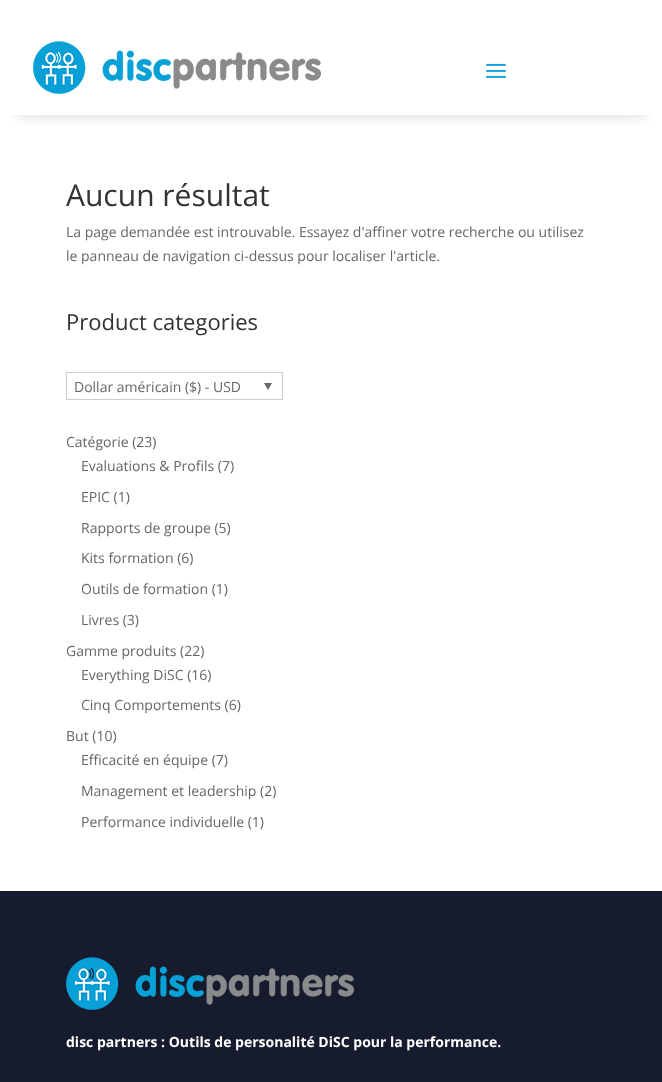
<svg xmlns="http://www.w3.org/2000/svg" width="662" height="1082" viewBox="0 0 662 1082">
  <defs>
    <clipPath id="clip1"><rect x="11" y="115" width="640" height="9"/></clipPath>
    <filter id="blur1" x="-50%" y="-200%" width="200%" height="500%"><feGaussianBlur stdDeviation="9"/></filter>
  </defs>
  <rect width="100%" height="100%" fill="#ffffff"/>
  <g clip-path="url(#clip1)">
    <rect x="17" y="29" width="628" height="81" fill="#000000" fill-opacity="0.3" filter="url(#blur1)"/>
  </g>
  <image x="33" y="41" width="288" height="53" href="img1.png"/>
  <image x="486" y="63" width="20" height="15" href="img2.png"/>
  <text x="66" y="206" font-family="Open Sans" font-size="30" fill="#333333">Aucun résultat</text>
  <text x="66" y="237" font-family="Open Sans" font-size="14" fill="#666666">La page demandée est introuvable. Essayez d'affiner votre recherche ou utilisez</text>
  <text x="66" y="261" font-family="Open Sans" font-size="14" fill="#666666">le panneau de navigation ci-dessus pour localiser l'article.</text>
  <text x="66" y="330" font-family="Open Sans" font-size="22" fill="#333333">Product categories</text>
  <rect x="66.5" y="372.5" width="216" height="27" fill="none" stroke="#cdcdcd"/>
  <text x="74" y="392" font-family="Open Sans" font-size="14" fill="#666666">Dollar américain ($) - USD</text>
  <path d="M264 383H272L268 390Z" fill="#666666"/>
  <text x="66" y="447" font-family="Open Sans" font-size="14" fill="#666666">Catégorie (23)</text>
  <text x="81" y="471" font-family="Open Sans" font-size="14" fill="#666666">Evaluations &amp; Profils (7)</text>
  <text x="81" y="502" font-family="Open Sans" font-size="14" fill="#666666">EPIC (1)</text>
  <text x="81" y="533" font-family="Open Sans" font-size="14" fill="#666666">Rapports de groupe (5)</text>
  <text x="81" y="563" font-family="Open Sans" font-size="14" fill="#666666">Kits formation (6)</text>
  <text x="81" y="594" font-family="Open Sans" font-size="14" fill="#666666">Outils de formation (1)</text>
  <text x="81" y="625" font-family="Open Sans" font-size="14" fill="#666666">Livres (3)</text>
  <text x="66" y="656" font-family="Open Sans" font-size="14" fill="#666666">Gamme produits (22)</text>
  <text x="81" y="680" font-family="Open Sans" font-size="14" fill="#666666">Everything DiSC (16)</text>
  <text x="81" y="710" font-family="Open Sans" font-size="14" fill="#666666">Cinq Comportements (6)</text>
  <text x="66" y="741" font-family="Open Sans" font-size="14" fill="#666666">But (10)</text>
  <text x="81" y="765" font-family="Open Sans" font-size="14" fill="#666666">Efficacité en équipe (7)</text>
  <text x="81" y="796" font-family="Open Sans" font-size="14" fill="#666666">Management et leadership (2)</text>
  <text x="81" y="827" font-family="Open Sans" font-size="14" fill="#666666">Performance individuelle (1)</text>
  <rect x="0" y="891" width="662" height="191" fill="#161c2d"/>
  <image x="66" y="957" width="288" height="53" href="img3.png"/>
  <text x="66" y="1047" font-family="Open Sans" font-size="14" font-weight="bold" fill="#ffffff">disc partners : Outils de personalité DiSC pour la performance.</text>
</svg>
